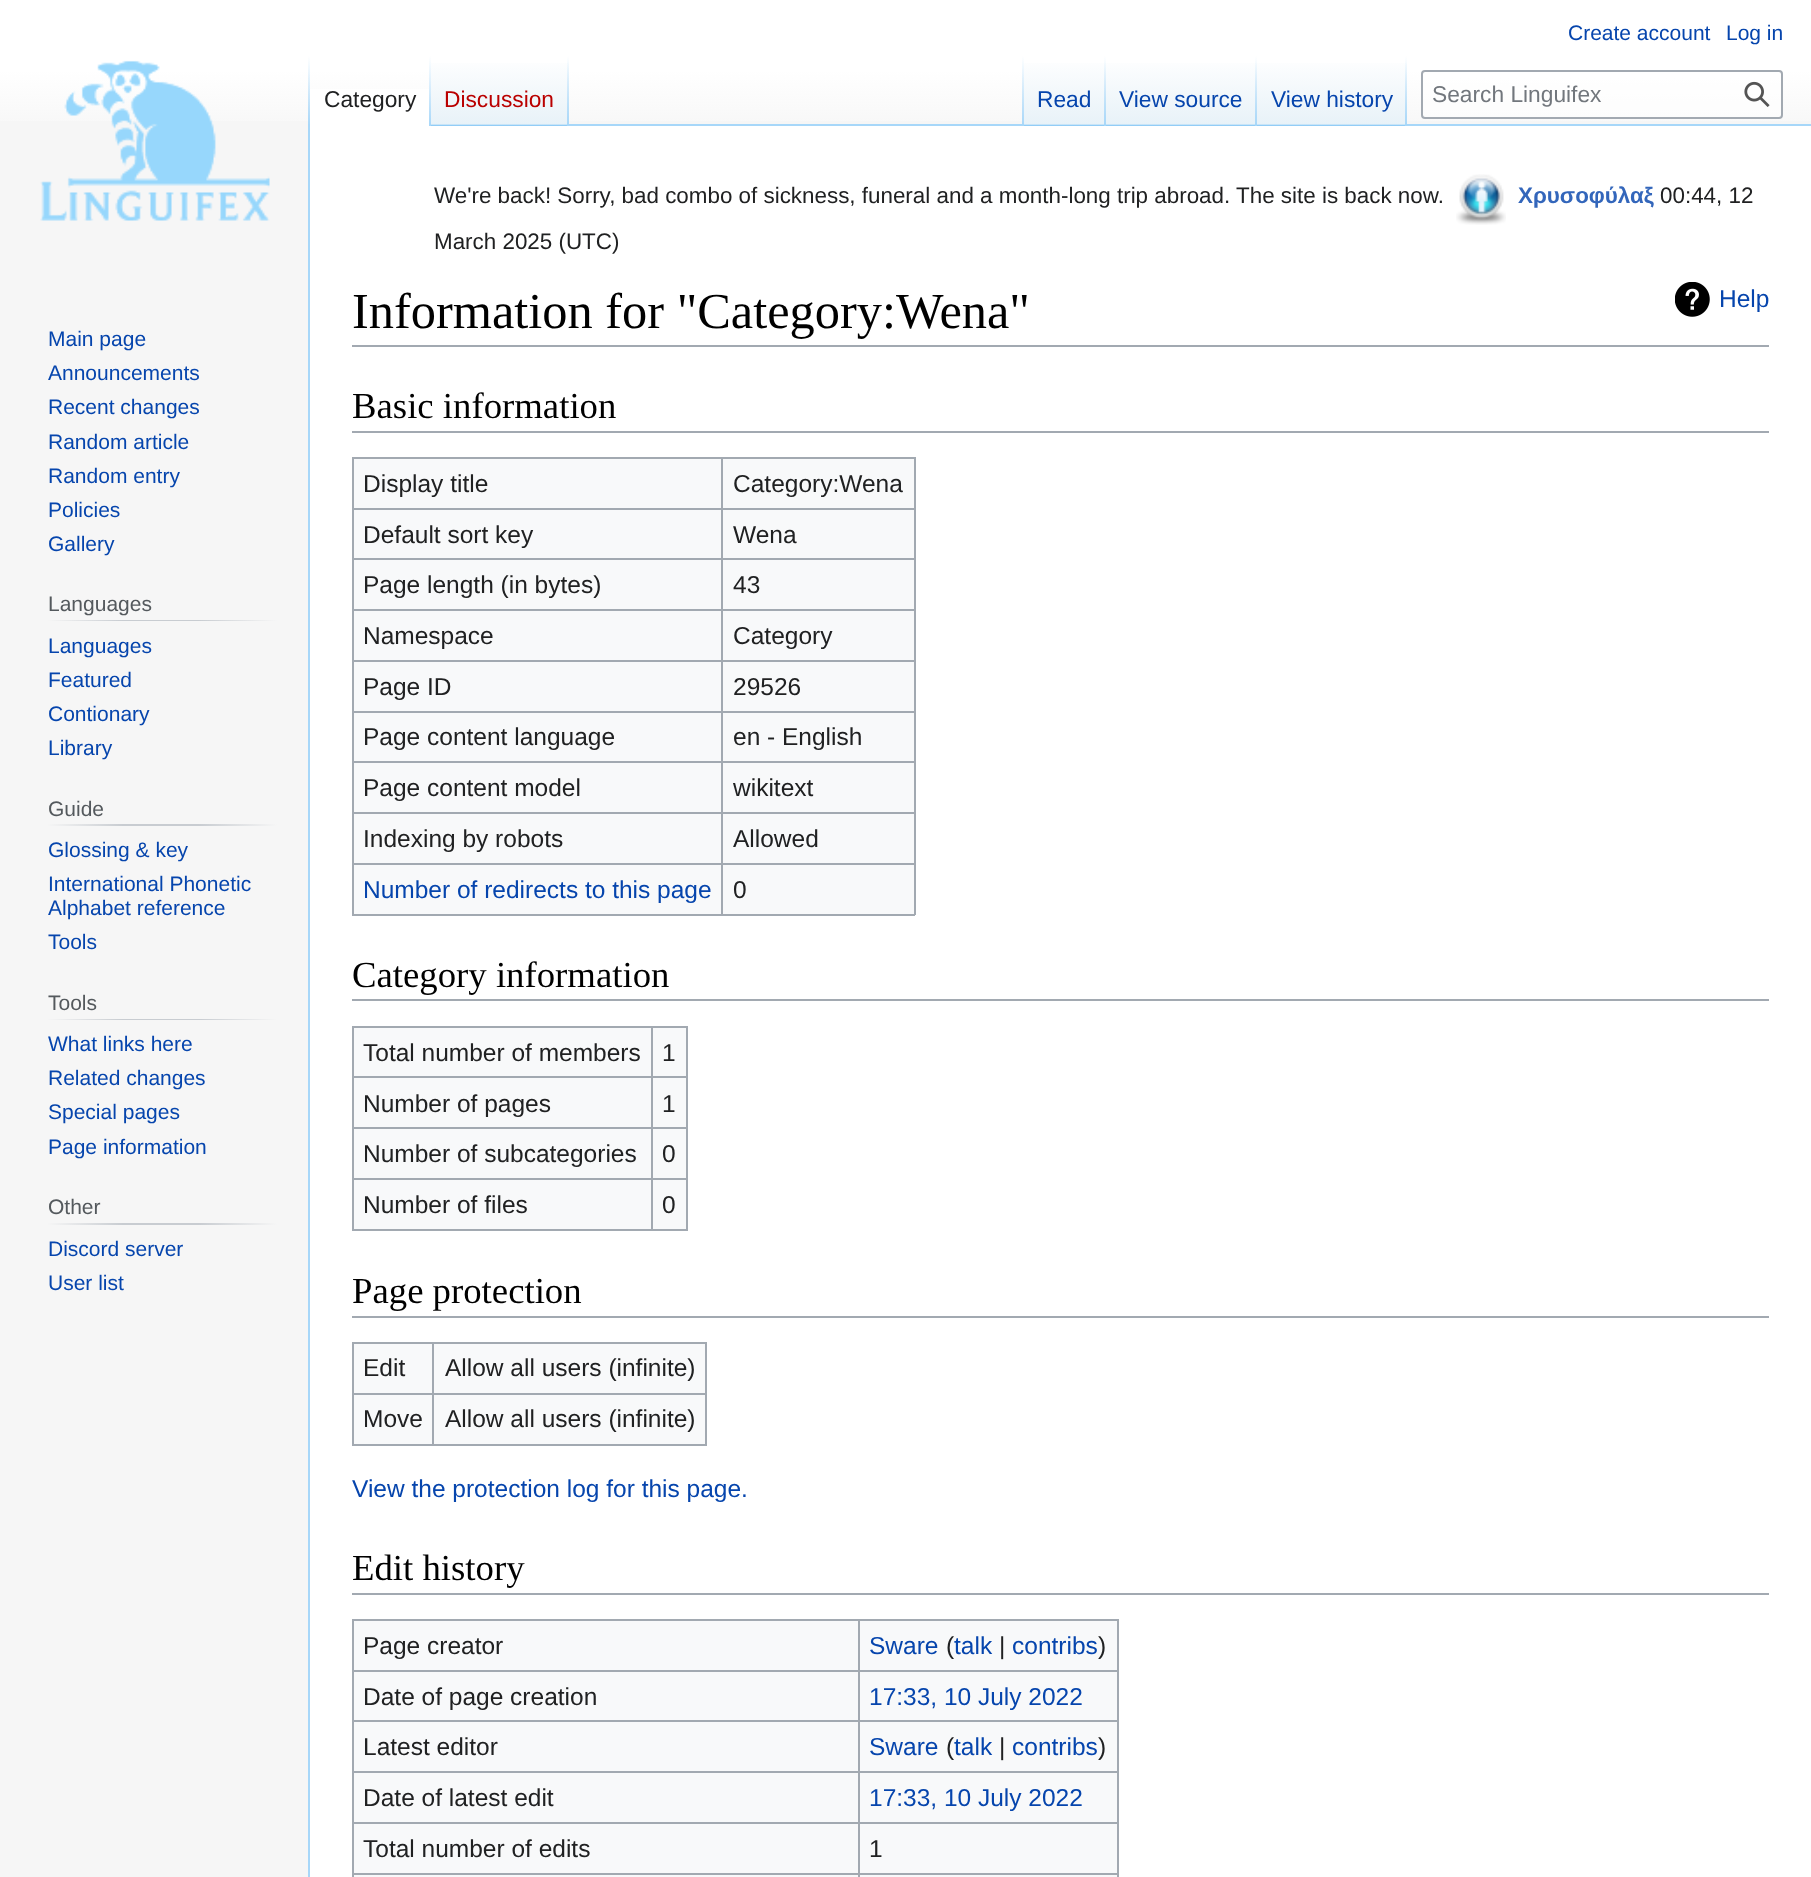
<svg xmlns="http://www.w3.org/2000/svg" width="1811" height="1877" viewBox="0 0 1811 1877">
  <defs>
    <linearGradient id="g1" gradientUnits="userSpaceOnUse" x1="906" y1="0" x2="906" y2="140"><stop offset="0.5" stop-color="#ffffff"/><stop offset="1" stop-color="#f6f6f6"/></linearGradient>
    <linearGradient id="g2" gradientUnits="userSpaceOnUse" x1="309" y1="56" x2="309" y2="126"><stop offset="0" stop-color="#a7d7f9" stop-opacity="0"/><stop offset="1" stop-color="#a7d7f9"/></linearGradient>
    <linearGradient id="g3" gradientUnits="userSpaceOnUse" x1="430" y1="56" x2="430" y2="126"><stop offset="0" stop-color="#ffffff"/><stop offset="1" stop-color="#a7d7f9"/></linearGradient>
    <linearGradient id="g4" gradientUnits="userSpaceOnUse" x1="500" y1="126" x2="500" y2="56"><stop offset="0" stop-color="#77c1f6"/><stop offset="0.03" stop-color="#e8f2f8"/><stop offset="1" stop-color="#ffffff"/></linearGradient>
    <linearGradient id="g5" gradientUnits="userSpaceOnUse" x1="568" y1="56" x2="568" y2="126"><stop offset="0" stop-color="#a7d7f9" stop-opacity="0"/><stop offset="1" stop-color="#a7d7f9"/></linearGradient>
    <linearGradient id="g6" gradientUnits="userSpaceOnUse" x1="1023" y1="56" x2="1023" y2="126"><stop offset="0" stop-color="#a7d7f9" stop-opacity="0"/><stop offset="1" stop-color="#a7d7f9"/></linearGradient>
    <linearGradient id="g7" gradientUnits="userSpaceOnUse" x1="1065" y1="126" x2="1065" y2="56"><stop offset="0" stop-color="#77c1f6"/><stop offset="0.03" stop-color="#e8f2f8"/><stop offset="1" stop-color="#ffffff"/></linearGradient>
    <linearGradient id="g8" gradientUnits="userSpaceOnUse" x1="1105" y1="56" x2="1105" y2="126"><stop offset="0" stop-color="#a7d7f9" stop-opacity="0"/><stop offset="1" stop-color="#a7d7f9"/></linearGradient>
    <linearGradient id="g9" gradientUnits="userSpaceOnUse" x1="1181" y1="126" x2="1181" y2="56"><stop offset="0" stop-color="#77c1f6"/><stop offset="0.03" stop-color="#e8f2f8"/><stop offset="1" stop-color="#ffffff"/></linearGradient>
    <linearGradient id="g10" gradientUnits="userSpaceOnUse" x1="1256" y1="56" x2="1256" y2="126"><stop offset="0" stop-color="#a7d7f9" stop-opacity="0"/><stop offset="1" stop-color="#a7d7f9"/></linearGradient>
    <linearGradient id="g11" gradientUnits="userSpaceOnUse" x1="1332" y1="126" x2="1332" y2="56"><stop offset="0" stop-color="#77c1f6"/><stop offset="0.03" stop-color="#e8f2f8"/><stop offset="1" stop-color="#ffffff"/></linearGradient>
    <linearGradient id="g12" gradientUnits="userSpaceOnUse" x1="1406" y1="56" x2="1406" y2="126"><stop offset="0" stop-color="#a7d7f9" stop-opacity="0"/><stop offset="1" stop-color="#a7d7f9"/></linearGradient>
    <linearGradient id="g13" gradientUnits="userSpaceOnUse" x1="47" y1="620" x2="277" y2="620"><stop offset="0" stop-color="#f6f6f6"/><stop offset="0.33" stop-color="#c8ccd1"/><stop offset="0.66" stop-color="#c8ccd1"/><stop offset="1" stop-color="#f6f6f6"/></linearGradient>
    <linearGradient id="g14" gradientUnits="userSpaceOnUse" x1="47" y1="825" x2="277" y2="825"><stop offset="0" stop-color="#f6f6f6"/><stop offset="0.33" stop-color="#c8ccd1"/><stop offset="0.66" stop-color="#c8ccd1"/><stop offset="1" stop-color="#f6f6f6"/></linearGradient>
    <linearGradient id="g15" gradientUnits="userSpaceOnUse" x1="47" y1="1019" x2="277" y2="1019"><stop offset="0" stop-color="#f6f6f6"/><stop offset="0.33" stop-color="#c8ccd1"/><stop offset="0.66" stop-color="#c8ccd1"/><stop offset="1" stop-color="#f6f6f6"/></linearGradient>
    <linearGradient id="g16" gradientUnits="userSpaceOnUse" x1="47" y1="1224" x2="277" y2="1224"><stop offset="0" stop-color="#f6f6f6"/><stop offset="0.33" stop-color="#c8ccd1"/><stop offset="0.66" stop-color="#c8ccd1"/><stop offset="1" stop-color="#f6f6f6"/></linearGradient>
  </defs>
  <rect width="100%" height="100%" fill="#f6f6f6"/>
  <rect x="0" y="0" width="1811" height="121" fill="url(#g1)"/>
  <text x="1568" y="40" font-family="Liberation Sans" font-size="21" fill="#0645ad">Create account</text>
  <text x="1726" y="40" font-family="Liberation Sans" font-size="21" fill="#0645ad">Log in</text>
  <rect x="308" y="124" width="2" height="1753" fill="#a7d7f9"/>
  <rect x="308" y="56" width="2" height="70" fill="url(#g2)"/>
  <rect x="310" y="89" width="119" height="37" fill="#ffffff"/>
  <rect x="429" y="56" width="2" height="70" fill="url(#g3)"/>
  <text x="324" y="107" font-family="Liberation Sans" font-size="22.75" fill="#202122">Category</text>
  <rect x="431" y="63" width="138" height="63" fill="url(#g4)"/>
  <rect x="567" y="56" width="2" height="70" fill="url(#g5)"/>
  <text x="444" y="107" font-family="Liberation Sans" font-size="22.75" fill="#ba0000">Discussion</text>
  <rect x="569" y="124" width="1242" height="2" fill="#a7d7f9"/>
  <rect x="1022" y="56" width="2" height="70" fill="url(#g6)"/>
  <rect x="1024" y="63" width="82" height="63" fill="url(#g7)"/>
  <rect x="1104" y="56" width="2" height="70" fill="url(#g8)"/>
  <text x="1037" y="107" font-family="Liberation Sans" font-size="22.75" fill="#0645ad">Read</text>
  <rect x="1106" y="63" width="151" height="63" fill="url(#g9)"/>
  <rect x="1255" y="56" width="2" height="70" fill="url(#g10)"/>
  <text x="1119" y="107" font-family="Liberation Sans" font-size="22.75" fill="#0645ad">View source</text>
  <rect x="1257" y="63" width="150" height="63" fill="url(#g11)"/>
  <rect x="1405" y="56" width="2" height="70" fill="url(#g12)"/>
  <text x="1271" y="107" font-family="Liberation Sans" font-size="22.75" fill="#0645ad">View history</text>
  <rect x="1422" y="71" width="360" height="47" rx="3" fill="#ffffff" fill-opacity="0.5" stroke="#a2a9b1" stroke-width="2"/>
  <text x="1432" y="102" font-family="Liberation Sans" font-size="22.75" fill="#72777d">Search Linguifex</text>
  <image x="1744" y="81" width="26" height="26" href="img1.png"/>
  <image x="40" y="60" width="230" height="161" href="img2.png"/>
  <text x="48" y="346" font-family="Liberation Sans" font-size="21" fill="#0645ad">Main page</text>
  <text x="48" y="380" font-family="Liberation Sans" font-size="21" fill="#0645ad">Announcements</text>
  <text x="48" y="414" font-family="Liberation Sans" font-size="21" fill="#0645ad">Recent changes</text>
  <text x="48" y="449" font-family="Liberation Sans" font-size="21" fill="#0645ad">Random article</text>
  <text x="48" y="483" font-family="Liberation Sans" font-size="21" fill="#0645ad">Random entry</text>
  <text x="48" y="517" font-family="Liberation Sans" font-size="21" fill="#0645ad">Policies</text>
  <text x="48" y="551" font-family="Liberation Sans" font-size="21" fill="#0645ad">Gallery</text>
  <rect x="47" y="620" width="230" height="1" fill="url(#g13)"/>
  <text x="48" y="611" font-family="Liberation Sans" font-size="21" fill="#54595d">Languages</text>
  <text x="48" y="653" font-family="Liberation Sans" font-size="21" fill="#0645ad">Languages</text>
  <text x="48" y="687" font-family="Liberation Sans" font-size="21" fill="#0645ad">Featured</text>
  <text x="48" y="721" font-family="Liberation Sans" font-size="21" fill="#0645ad">Contionary</text>
  <text x="48" y="755" font-family="Liberation Sans" font-size="21" fill="#0645ad">Library</text>
  <rect x="47" y="824" width="230" height="2" fill="url(#g14)"/>
  <text x="48" y="816" font-family="Liberation Sans" font-size="21" fill="#54595d">Guide</text>
  <text x="48" y="857" font-family="Liberation Sans" font-size="21" fill="#0645ad">Glossing &amp; key</text>
  <text x="48" y="891" font-family="Liberation Sans" font-size="21" fill="#0645ad">International Phonetic</text>
  <text x="48" y="915" font-family="Liberation Sans" font-size="21" fill="#0645ad">Alphabet reference</text>
  <text x="48" y="949" font-family="Liberation Sans" font-size="21" fill="#0645ad">Tools</text>
  <rect x="47" y="1019" width="230" height="1" fill="url(#g15)"/>
  <text x="48" y="1010" font-family="Liberation Sans" font-size="21" fill="#54595d">Tools</text>
  <text x="48" y="1051" font-family="Liberation Sans" font-size="21" fill="#0645ad">What links here</text>
  <text x="48" y="1085" font-family="Liberation Sans" font-size="21" fill="#0645ad">Related changes</text>
  <text x="48" y="1119" font-family="Liberation Sans" font-size="21" fill="#0645ad">Special pages</text>
  <text x="48" y="1154" font-family="Liberation Sans" font-size="21" fill="#0645ad">Page information</text>
  <rect x="47" y="1223" width="230" height="2" fill="url(#g16)"/>
  <text x="48" y="1214" font-family="Liberation Sans" font-size="21" fill="#54595d">Other</text>
  <text x="48" y="1256" font-family="Liberation Sans" font-size="21" fill="#0645ad">Discord server</text>
  <text x="48" y="1290" font-family="Liberation Sans" font-size="21" fill="#0645ad">User list</text>
  <rect x="310" y="126" width="1501" height="1751" fill="#ffffff"/>
  <text x="434" y="203" font-family="Liberation Sans" font-size="22.4" fill="#202122">We're back! Sorry, bad combo of sickness, funeral and a month-long trip abroad. The site is back now.</text>
  <image x="1456" y="174" width="50" height="51" href="img3.png"/>
  <text x="1518" y="203" font-family="Liberation Sans" font-size="22.4" font-weight="bold" fill="#3366bb">Χρυσοφύλαξ</text>
  <text x="1660" y="203" font-family="Liberation Sans" font-size="22.4" fill="#202122">00:44, 12</text>
  <text x="434" y="249" font-family="Liberation Sans" font-size="22.4" fill="#202122">March 2025 (UTC)</text>
  <rect x="352" y="345" width="1417" height="2" fill="#a2a9b1"/>
  <text x="352" y="328" font-family="Liberation Serif" font-size="50.4" fill="#000000">Information for "Category:Wena"</text>
  <image x="1675" y="282" width="35" height="35" href="img4.png"/>
  <text x="1719" y="307" font-family="Liberation Sans" font-size="24.5" fill="#0645ad">Help</text>
  <rect x="352" y="431" width="1417" height="2" fill="#a2a9b1"/>
  <text x="352" y="418" font-family="Liberation Serif" font-size="36.75" fill="#000000">Basic information</text>
  <rect x="354" y="459" width="560" height="455" fill="#f8f9fa"/>
  <rect x="352" y="457" width="563" height="2" fill="#a2a9b1"/>
  <rect x="914" y="457" width="2" height="458" fill="#a2a9b1"/>
  <rect x="352" y="914" width="563" height="2" fill="#a2a9b1"/>
  <rect x="352" y="457" width="2" height="458" fill="#a2a9b1"/>
  <text x="363" y="492" font-family="Liberation Sans" font-size="24.5" fill="#202122">Display title</text>
  <rect x="721" y="508" width="194" height="2" fill="#a2a9b1"/>
  <rect x="721" y="558" width="194" height="2" fill="#a2a9b1"/>
  <rect x="721" y="609" width="194" height="2" fill="#a2a9b1"/>
  <rect x="721" y="660" width="194" height="2" fill="#a2a9b1"/>
  <rect x="721" y="711" width="194" height="2" fill="#a2a9b1"/>
  <rect x="721" y="761" width="194" height="2" fill="#a2a9b1"/>
  <rect x="721" y="812" width="194" height="2" fill="#a2a9b1"/>
  <rect x="721" y="863" width="194" height="2" fill="#a2a9b1"/>
  <rect x="721" y="863" width="2" height="52" fill="#a2a9b1"/>
  <rect x="352" y="863" width="371" height="2" fill="#a2a9b1"/>
  <rect x="721" y="812" width="2" height="53" fill="#a2a9b1"/>
  <rect x="352" y="812" width="371" height="2" fill="#a2a9b1"/>
  <rect x="721" y="761" width="2" height="53" fill="#a2a9b1"/>
  <rect x="352" y="761" width="371" height="2" fill="#a2a9b1"/>
  <rect x="721" y="711" width="2" height="52" fill="#a2a9b1"/>
  <rect x="352" y="711" width="371" height="2" fill="#a2a9b1"/>
  <rect x="721" y="660" width="2" height="52" fill="#a2a9b1"/>
  <rect x="352" y="660" width="371" height="2" fill="#a2a9b1"/>
  <rect x="721" y="609" width="2" height="53" fill="#a2a9b1"/>
  <rect x="352" y="609" width="371" height="2" fill="#a2a9b1"/>
  <rect x="721" y="558" width="2" height="53" fill="#a2a9b1"/>
  <rect x="352" y="558" width="371" height="2" fill="#a2a9b1"/>
  <rect x="721" y="508" width="2" height="52" fill="#a2a9b1"/>
  <rect x="352" y="508" width="371" height="2" fill="#a2a9b1"/>
  <rect x="721" y="457" width="2" height="52" fill="#a2a9b1"/>
  <text x="733" y="492" font-family="Liberation Sans" font-size="24.5" fill="#202122">Category:Wena</text>
  <text x="363" y="543" font-family="Liberation Sans" font-size="24.5" fill="#202122">Default sort key</text>
  <text x="733" y="543" font-family="Liberation Sans" font-size="24.5" fill="#202122">Wena</text>
  <text x="363" y="593" font-family="Liberation Sans" font-size="24.5" fill="#202122">Page length (in bytes)</text>
  <text x="733" y="593" font-family="Liberation Sans" font-size="24.5" fill="#202122">43</text>
  <text x="363" y="644" font-family="Liberation Sans" font-size="24.5" fill="#202122">Namespace</text>
  <text x="733" y="644" font-family="Liberation Sans" font-size="24.5" fill="#202122">Category</text>
  <text x="363" y="695" font-family="Liberation Sans" font-size="24.5" fill="#202122">Page ID</text>
  <text x="733" y="695" font-family="Liberation Sans" font-size="24.5" fill="#202122">29526</text>
  <text x="363" y="745" font-family="Liberation Sans" font-size="24.5" fill="#202122">Page content language</text>
  <text x="733" y="745" font-family="Liberation Sans" font-size="24.5" fill="#202122">en - English</text>
  <text x="363" y="796" font-family="Liberation Sans" font-size="24.5" fill="#202122">Page content model</text>
  <text x="733" y="796" font-family="Liberation Sans" font-size="24.5" fill="#202122">wikitext</text>
  <text x="363" y="847" font-family="Liberation Sans" font-size="24.5" fill="#202122">Indexing by robots</text>
  <text x="733" y="847" font-family="Liberation Sans" font-size="24.5" fill="#202122">Allowed</text>
  <text x="363" y="898" font-family="Liberation Sans" font-size="24.5" fill="#0645ad">Number of redirects to this page</text>
  <text x="733" y="898" font-family="Liberation Sans" font-size="24.5" fill="#202122">0</text>
  <rect x="352" y="999" width="1417" height="2" fill="#a2a9b1"/>
  <text x="352" y="987" font-family="Liberation Serif" font-size="36.75" fill="#000000">Category information</text>
  <rect x="354" y="1028" width="332" height="201" fill="#f8f9fa"/>
  <rect x="352" y="1026" width="336" height="2" fill="#a2a9b1"/>
  <rect x="686" y="1026" width="2" height="204" fill="#a2a9b1"/>
  <rect x="352" y="1229" width="336" height="2" fill="#a2a9b1"/>
  <rect x="352" y="1026" width="2" height="204" fill="#a2a9b1"/>
  <text x="363" y="1061" font-family="Liberation Sans" font-size="24.5" fill="#202122">Total number of members</text>
  <rect x="651" y="1076" width="37" height="2" fill="#a2a9b1"/>
  <rect x="651" y="1127" width="37" height="2" fill="#a2a9b1"/>
  <rect x="651" y="1178" width="37" height="2" fill="#a2a9b1"/>
  <rect x="651" y="1178" width="2" height="52" fill="#a2a9b1"/>
  <rect x="352" y="1178" width="301" height="2" fill="#a2a9b1"/>
  <rect x="651" y="1127" width="2" height="53" fill="#a2a9b1"/>
  <rect x="352" y="1127" width="301" height="2" fill="#a2a9b1"/>
  <rect x="651" y="1076" width="2" height="53" fill="#a2a9b1"/>
  <rect x="352" y="1076" width="301" height="2" fill="#a2a9b1"/>
  <rect x="651" y="1026" width="2" height="52" fill="#a2a9b1"/>
  <text x="662" y="1061" font-family="Liberation Sans" font-size="24.5" fill="#202122">1</text>
  <text x="363" y="1112" font-family="Liberation Sans" font-size="24.5" fill="#202122">Number of pages</text>
  <text x="662" y="1112" font-family="Liberation Sans" font-size="24.5" fill="#202122">1</text>
  <text x="363" y="1162" font-family="Liberation Sans" font-size="24.5" fill="#202122">Number of subcategories</text>
  <text x="662" y="1162" font-family="Liberation Sans" font-size="24.5" fill="#202122">0</text>
  <text x="363" y="1213" font-family="Liberation Sans" font-size="24.5" fill="#202122">Number of files</text>
  <text x="662" y="1213" font-family="Liberation Sans" font-size="24.5" fill="#202122">0</text>
  <rect x="352" y="1316" width="1417" height="2" fill="#a2a9b1"/>
  <text x="352" y="1303" font-family="Liberation Serif" font-size="36.75" fill="#000000">Page protection</text>
  <rect x="354" y="1344" width="351" height="100" fill="#f8f9fa"/>
  <rect x="352" y="1342" width="355" height="2" fill="#a2a9b1"/>
  <rect x="705" y="1342" width="2" height="104" fill="#a2a9b1"/>
  <rect x="352" y="1444" width="355" height="2" fill="#a2a9b1"/>
  <rect x="352" y="1342" width="2" height="104" fill="#a2a9b1"/>
  <text x="363" y="1376" font-family="Liberation Sans" font-size="24.5" fill="#202122">Edit</text>
  <rect x="432" y="1393" width="275" height="2" fill="#a2a9b1"/>
  <rect x="432" y="1393" width="2" height="53" fill="#a2a9b1"/>
  <rect x="352" y="1393" width="82" height="2" fill="#a2a9b1"/>
  <rect x="432" y="1342" width="2" height="53" fill="#a2a9b1"/>
  <text x="445" y="1376" font-family="Liberation Sans" font-size="24.5" fill="#202122">Allow all users (infinite)</text>
  <text x="363" y="1427" font-family="Liberation Sans" font-size="24.5" fill="#202122">Move</text>
  <text x="445" y="1427" font-family="Liberation Sans" font-size="24.5" fill="#202122">Allow all users (infinite)</text>
  <text x="352" y="1497" font-family="Liberation Sans" font-size="24.5" fill="#0645ad">View the protection log for this page.</text>
  <rect x="352" y="1593" width="1417" height="2" fill="#a2a9b1"/>
  <text x="352" y="1580" font-family="Liberation Serif" font-size="36.75" fill="#000000">Edit history</text>
  <rect x="354" y="1621" width="763" height="256" fill="#f8f9fa"/>
  <rect x="352" y="1619" width="766" height="2" fill="#a2a9b1"/>
  <rect x="1117" y="1619" width="2" height="258" fill="#a2a9b1"/>
  <rect x="352" y="1619" width="2" height="258" fill="#a2a9b1"/>
  <text x="363" y="1654" font-family="Liberation Sans" font-size="24.5" fill="#202122">Page creator</text>
  <rect x="858" y="1670" width="260" height="2" fill="#a2a9b1"/>
  <rect x="858" y="1720" width="260" height="2" fill="#a2a9b1"/>
  <rect x="858" y="1771" width="260" height="2" fill="#a2a9b1"/>
  <rect x="858" y="1822" width="260" height="2" fill="#a2a9b1"/>
  <rect x="858" y="1873" width="260" height="2" fill="#a2a9b1"/>
  <rect x="858" y="1873" width="2" height="4" fill="#a2a9b1"/>
  <rect x="352" y="1873" width="507" height="2" fill="#a2a9b1"/>
  <rect x="858" y="1822" width="2" height="52" fill="#a2a9b1"/>
  <rect x="352" y="1822" width="507" height="2" fill="#a2a9b1"/>
  <rect x="858" y="1771" width="2" height="53" fill="#a2a9b1"/>
  <rect x="352" y="1771" width="507" height="2" fill="#a2a9b1"/>
  <rect x="858" y="1720" width="2" height="53" fill="#a2a9b1"/>
  <rect x="352" y="1720" width="507" height="2" fill="#a2a9b1"/>
  <rect x="858" y="1670" width="2" height="52" fill="#a2a9b1"/>
  <rect x="352" y="1670" width="507" height="2" fill="#a2a9b1"/>
  <rect x="858" y="1619" width="2" height="52" fill="#a2a9b1"/>
  <text x="869" y="1654" font-family="Liberation Sans" font-size="24.5" fill="#0645ad">Sware</text>
  <text x="946" y="1654" font-family="Liberation Sans" font-size="24.5" fill="#202122">(</text>
  <text x="954" y="1654" font-family="Liberation Sans" font-size="24.5" fill="#0645ad">talk</text>
  <text x="999" y="1654" font-family="Liberation Sans" font-size="24.5" fill="#202122">|</text>
  <text x="1012" y="1654" font-family="Liberation Sans" font-size="24.5" fill="#0645ad">contribs</text>
  <text x="1098" y="1654" font-family="Liberation Sans" font-size="24.5" fill="#202122">)</text>
  <text x="363" y="1705" font-family="Liberation Sans" font-size="24.5" fill="#202122">Date of page creation</text>
  <text x="869" y="1705" font-family="Liberation Sans" font-size="24.5" fill="#0645ad">17:33, 10 July 2022</text>
  <text x="363" y="1755" font-family="Liberation Sans" font-size="24.5" fill="#202122">Latest editor</text>
  <text x="869" y="1755" font-family="Liberation Sans" font-size="24.5" fill="#0645ad">Sware</text>
  <text x="946" y="1755" font-family="Liberation Sans" font-size="24.5" fill="#202122">(</text>
  <text x="954" y="1755" font-family="Liberation Sans" font-size="24.5" fill="#0645ad">talk</text>
  <text x="999" y="1755" font-family="Liberation Sans" font-size="24.5" fill="#202122">|</text>
  <text x="1012" y="1755" font-family="Liberation Sans" font-size="24.5" fill="#0645ad">contribs</text>
  <text x="1098" y="1755" font-family="Liberation Sans" font-size="24.5" fill="#202122">)</text>
  <text x="363" y="1806" font-family="Liberation Sans" font-size="24.5" fill="#202122">Date of latest edit</text>
  <text x="869" y="1806" font-family="Liberation Sans" font-size="24.5" fill="#0645ad">17:33, 10 July 2022</text>
  <text x="363" y="1857" font-family="Liberation Sans" font-size="24.5" fill="#202122">Total number of edits</text>
  <text x="869" y="1857" font-family="Liberation Sans" font-size="24.5" fill="#202122">1</text>
</svg>
